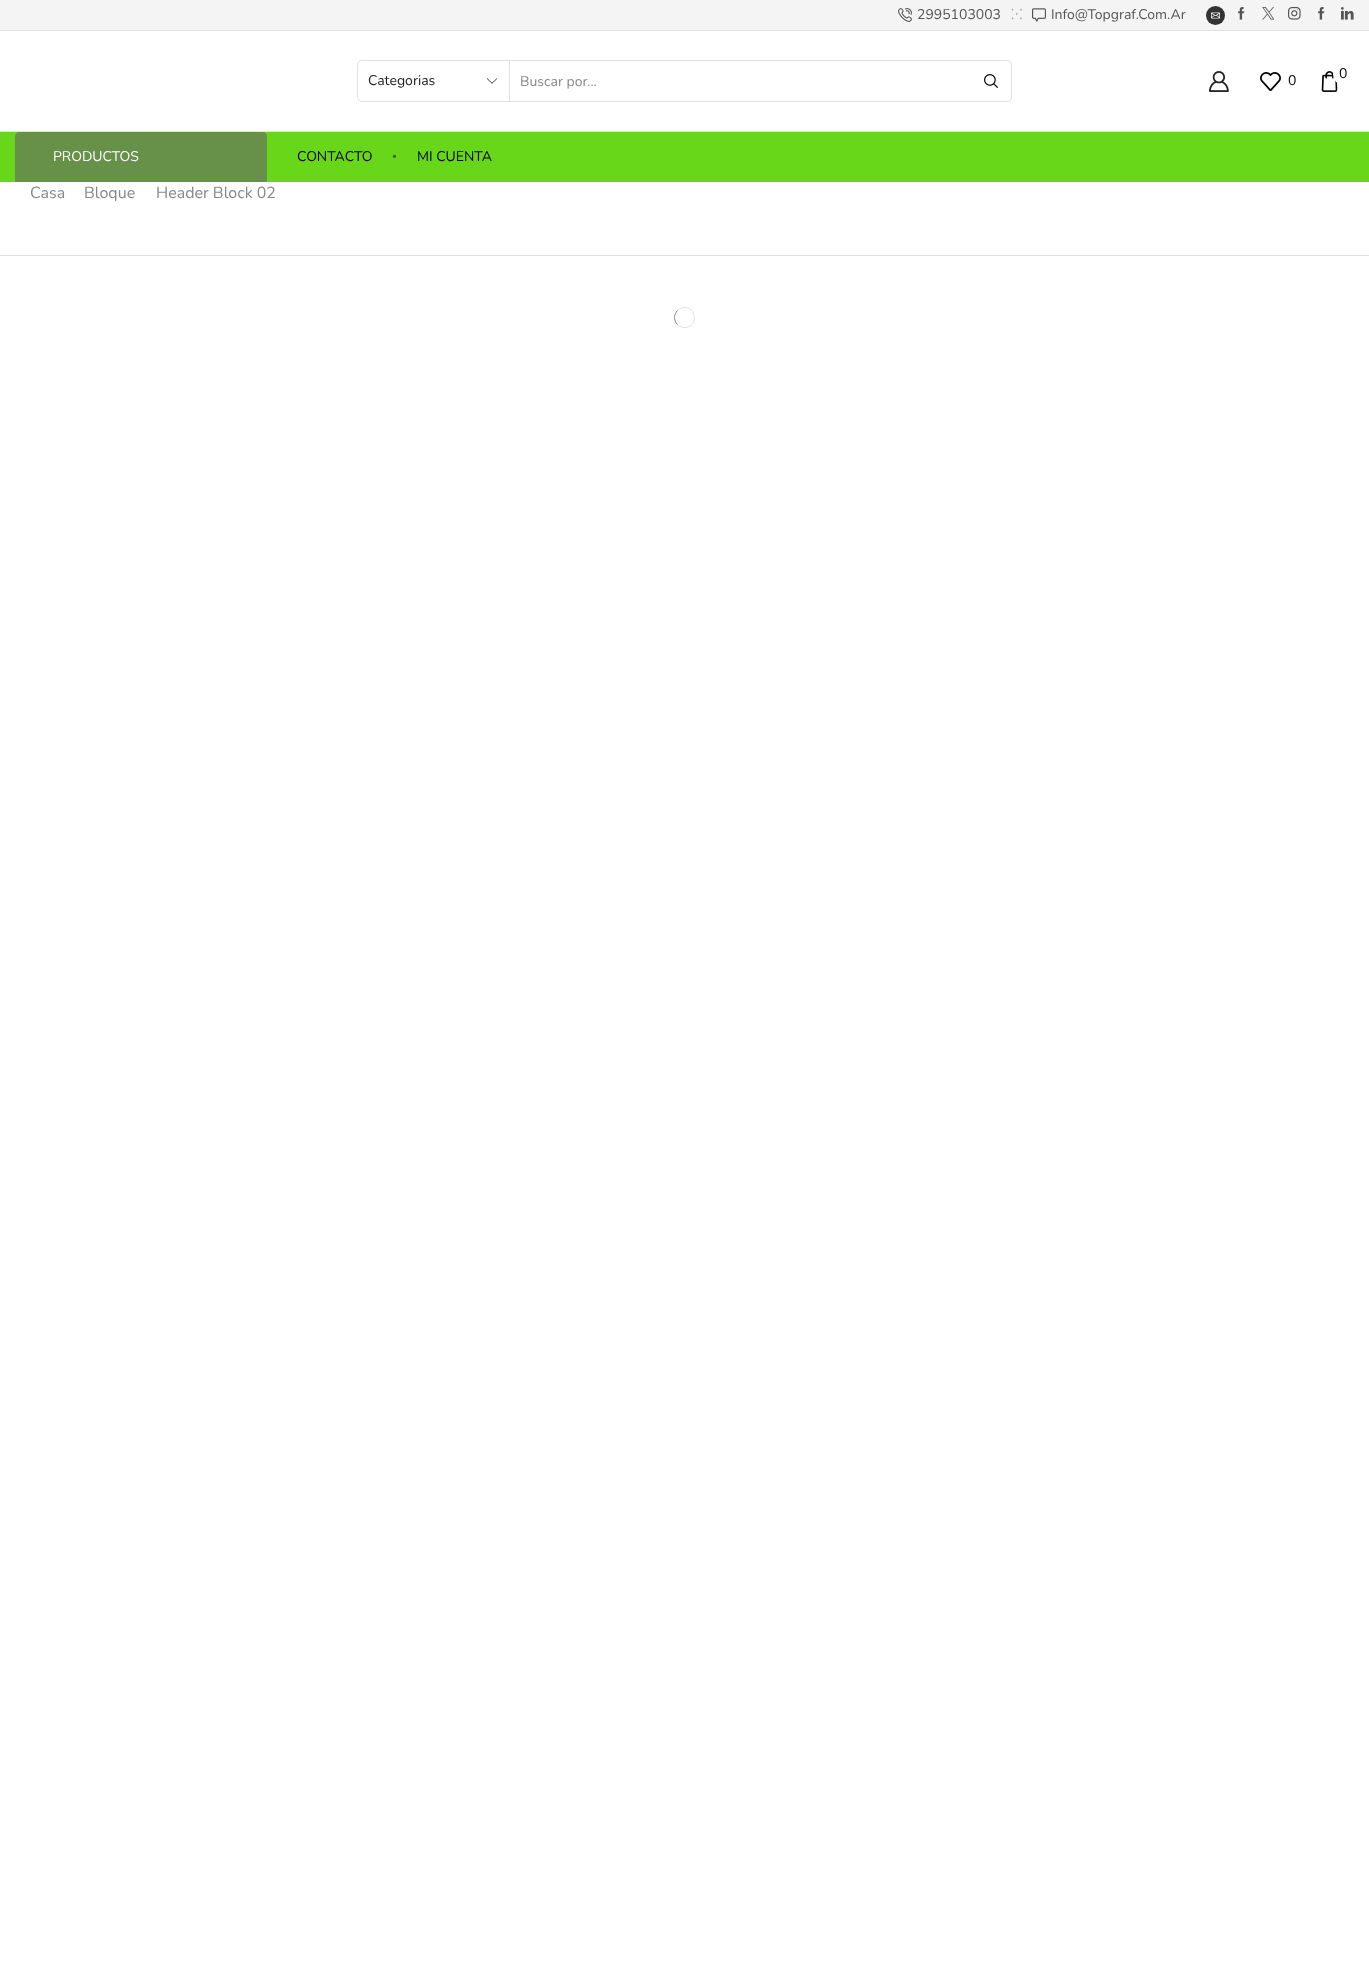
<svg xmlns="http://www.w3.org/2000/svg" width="1369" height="1967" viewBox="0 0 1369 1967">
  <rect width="100%" height="100%" fill="#ffffff"/>
  <rect x="0" y="0" width="1369" height="30" fill="#f4f4f4"/>
  <rect x="0" y="30" width="1369" height="1" fill="#e1e1e1"/>
  <image x="898" y="8" width="14" height="14" href="img1.png"/>
  <text x="917" y="19" font-family="Nunito" font-size="14" font-weight="200" fill="#555555">2995103003</text>
  <text x="1011" y="19" font-family="Noto Sans" font-size="14" fill="#a5a5a5">⁙</text>
  <image x="1032" y="8" width="14" height="14" href="img2.png"/>
  <text x="1051" y="19" font-family="Nunito" font-size="14" font-weight="200" fill="#555555">Info@Topgraf.Com.Ar</text>
  <circle cx="1215.5" cy="15.5" r="9.5" fill="#333333"/>
  <image x="1211" y="12" width="9" height="7" href="img3.png"/>
  <image x="1238" y="7" width="7" height="13" href="img4.png"/>
  <image x="1262" y="7" width="12" height="13" href="img5.png"/>
  <image x="1288" y="7" width="13" height="13" href="img6.png"/>
  <image x="1318" y="7" width="7" height="13" href="img4.png"/>
  <image x="1341" y="7" width="13" height="13" href="img7.png"/>
  <rect x="0" y="131" width="1369" height="1" fill="#e1e1e1"/>
  <rect x="357.5" y="60.5" width="654" height="41" rx="4.5" fill="none" stroke="#e1e1e1"/>
  <image x="487" y="78" width="10" height="6" href="img8.png"/>
  <rect x="509" y="61" width="1" height="40" fill="#e1e1e1"/>
  <text x="368" y="85" font-family="Nunito" font-size="14" font-weight="200" fill="#222222">Categorias</text>
  <text x="520" y="86" font-family="Nunito" font-size="14" font-weight="200" fill="#888888">Buscar por...</text>
  <rect x="971" y="61" width="40" height="40" rx="5" fill="#ffffff"/>
  <image x="984" y="74" width="14" height="14" href="img9.png"/>
  <image x="1209" y="71" width="20" height="21" href="img10.png"/>
  <image x="1260" y="72" width="21" height="19" href="img11.png"/>
  <text x="1288" y="85" font-family="Nunito" font-size="14" font-weight="200" fill="#000000">0</text>
  <image x="1321" y="71" width="17" height="21" href="img12.png"/>
  <circle cx="1343.5" cy="74.5" r="10.5" fill="#ffffff"/>
  <text x="1339" y="78" font-family="Nunito" font-size="14" font-weight="200" fill="#000000">0</text>
  <rect x="0" y="132" width="1369" height="50" fill="#68d619"/>
  <path d="M19 132H263C265 132 267 134 267 136V182H15V136C15 134 17 132 19 132Z" fill="#679149"/>
  <text x="53" y="161" font-family="Nunito" font-size="14" font-weight="200" fill="#ffffff">PRODUCTOS</text>
  <text x="297" y="161" font-family="Nunito" font-size="14" font-weight="200" fill="#000000">CONTACTO</text>
  <text x="392" y="161" font-family="Liberation Serif" font-size="14" fill="#346b0d">•</text>
  <text x="417" y="161" font-family="Nunito" font-size="14" font-weight="200" fill="#000000">MI CUENTA</text>
  <rect x="0" y="255" width="1369" height="1" fill="#e1e1e1"/>
  <text x="30" y="198" font-family="Nunito" font-size="16" font-weight="200" fill="#888888">Casa</text>
  <text x="84" y="198" font-family="Nunito" font-size="16" font-weight="200" fill="#888888">Bloque</text>
  <text x="156" y="198" font-family="Nunito" font-size="16" font-weight="200" fill="#888888">Header Block 02</text>
  <path d="M677.5 310.5C679.5 308.5 682 307.5 684.5 307.5C696.5 307.5 698 325 686.5 327.5C683 328 680 327 677.5 324.5" fill="none" stroke="#e1e1e1"/>
  <path d="M677.5 324.5C673.5 320.5 673.5 314.5 677.5 310.5" fill="none" stroke="#888888"/>
</svg>
